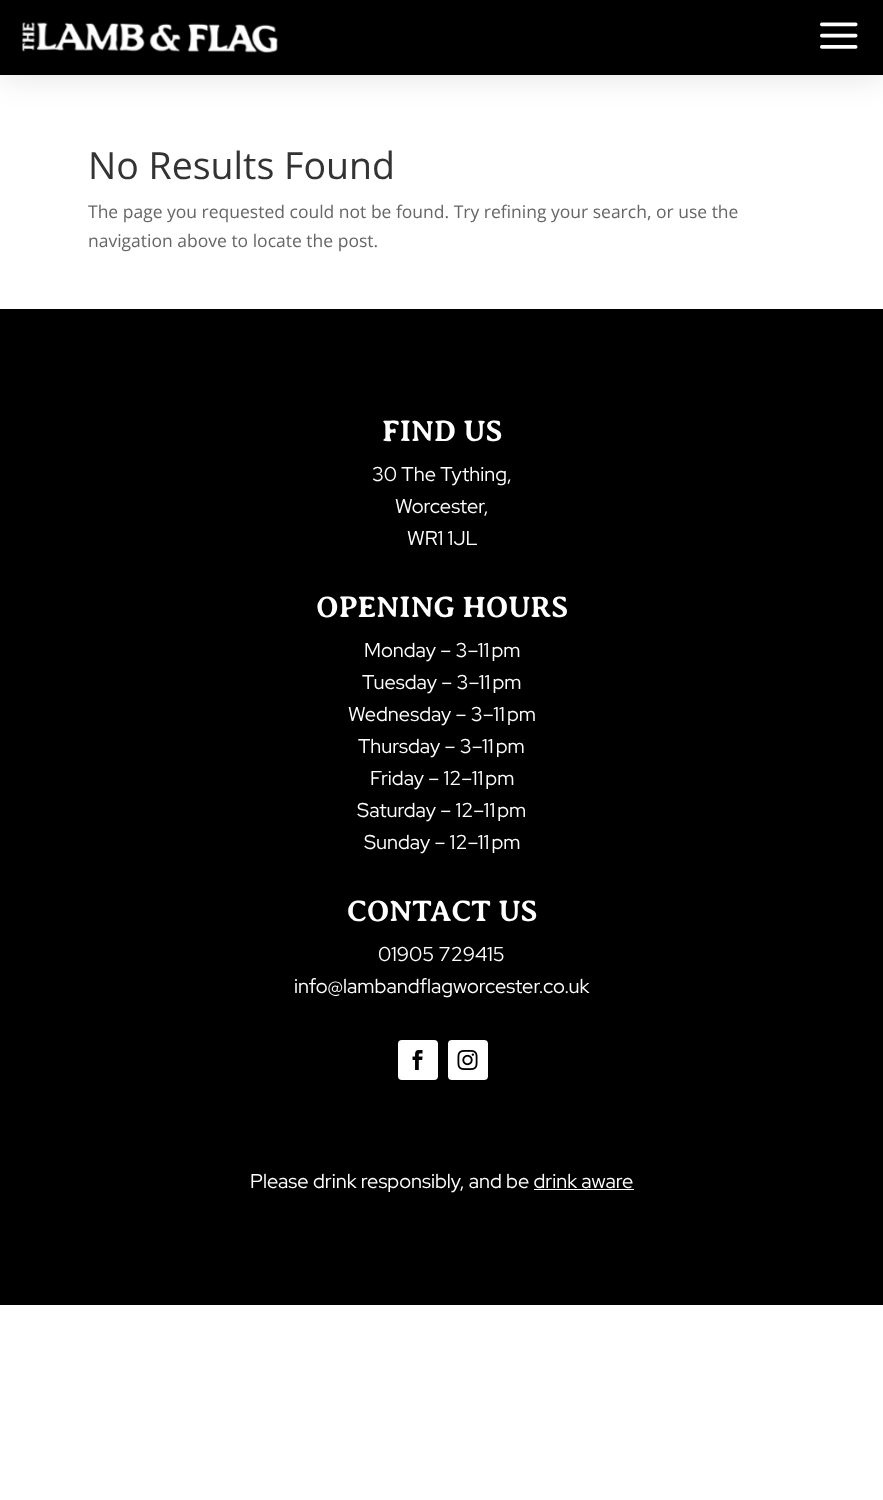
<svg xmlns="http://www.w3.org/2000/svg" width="883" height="1500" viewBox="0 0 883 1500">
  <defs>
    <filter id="blur1" x="-50%" y="-200%" width="200%" height="500%"><feGaussianBlur stdDeviation="15.5"/></filter>
  </defs>
  <rect width="100%" height="100%" fill="#ffffff"/>
  <rect x="0" y="3" width="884" height="75" fill="#000000" fill-opacity="0.1" filter="url(#blur1)"/>
  <rect x="0" y="0" width="883" height="75" fill="#000000"/>
  <image x="22" y="22" width="256" height="31" href="img1.png"/>
  <image x="820" y="22" width="38" height="27" href="img2.png"/>
  <text x="88" y="179" font-family="Open Sans" font-size="37.5" fill="#333333">No Results Found</text>
  <text x="88" y="218" font-family="Open Sans" font-size="17.5" fill="#666666">The page you requested could not be found. Try refining your search, or use the</text>
  <text x="88" y="247" font-family="Open Sans" font-size="17.5" fill="#666666">navigation above to locate the post.</text>
  <rect x="0" y="309" width="883" height="996" fill="#000000"/>
  <text x="382" y="441" font-family="Averia Serif Libre" font-size="30" font-weight="bold" fill="#ffffff">FIND US</text>
  <text x="372" y="481" font-family="Red Hat Display" font-size="20" fill="#ffffff">30 The Tything,</text>
  <text x="395" y="513" font-family="Red Hat Display" font-size="20" fill="#ffffff">Worcester,</text>
  <text x="407" y="545" font-family="Red Hat Display" font-size="20" fill="#ffffff">WR1 1JL</text>
  <text x="316" y="617" font-family="Averia Serif Libre" font-size="30" font-weight="bold" fill="#ffffff">OPENING HOURS</text>
  <text x="364" y="657" font-family="Red Hat Display" font-size="20" fill="#ffffff">Monday – 3–11 pm</text>
  <text x="362" y="689" font-family="Red Hat Display" font-size="20" fill="#ffffff">Tuesday – 3–11 pm</text>
  <text x="348" y="721" font-family="Red Hat Display" font-size="20" fill="#ffffff">Wednesday – 3–11 pm</text>
  <text x="358" y="753" font-family="Red Hat Display" font-size="20" fill="#ffffff">Thursday – 3–11 pm</text>
  <text x="370" y="785" font-family="Red Hat Display" font-size="20" fill="#ffffff">Friday – 12–11 pm</text>
  <text x="357" y="817" font-family="Red Hat Display" font-size="20" fill="#ffffff">Saturday – 12–11 pm</text>
  <text x="364" y="849" font-family="Red Hat Display" font-size="20" fill="#ffffff">Sunday – 12–11 pm</text>
  <text x="347" y="921" font-family="Averia Serif Libre" font-size="30" font-weight="bold" fill="#ffffff">CONTACT US</text>
  <text x="378" y="961" font-family="Red Hat Display" font-size="20" fill="#ffffff">01905 729415</text>
  <text x="294" y="993" font-family="Red Hat Display" font-size="20" fill="#ffffff">info@lambandflagworcester.co.uk</text>
  <rect x="398" y="1040" width="40" height="40" rx="4" fill="#ffffff"/>
  <image x="412" y="1050" width="11" height="20" href="img3.png"/>
  <rect x="448" y="1040" width="40" height="40" rx="4" fill="#ffffff"/>
  <image x="457" y="1050" width="21" height="20" href="img4.png"/>
  <text x="250" y="1188" font-family="Red Hat Display" font-size="20" fill="#ffffff">Please drink responsibly, and be drink aware</text>
  <rect x="534" y="1189" width="100" height="1" fill="#ffffff"/>
</svg>
